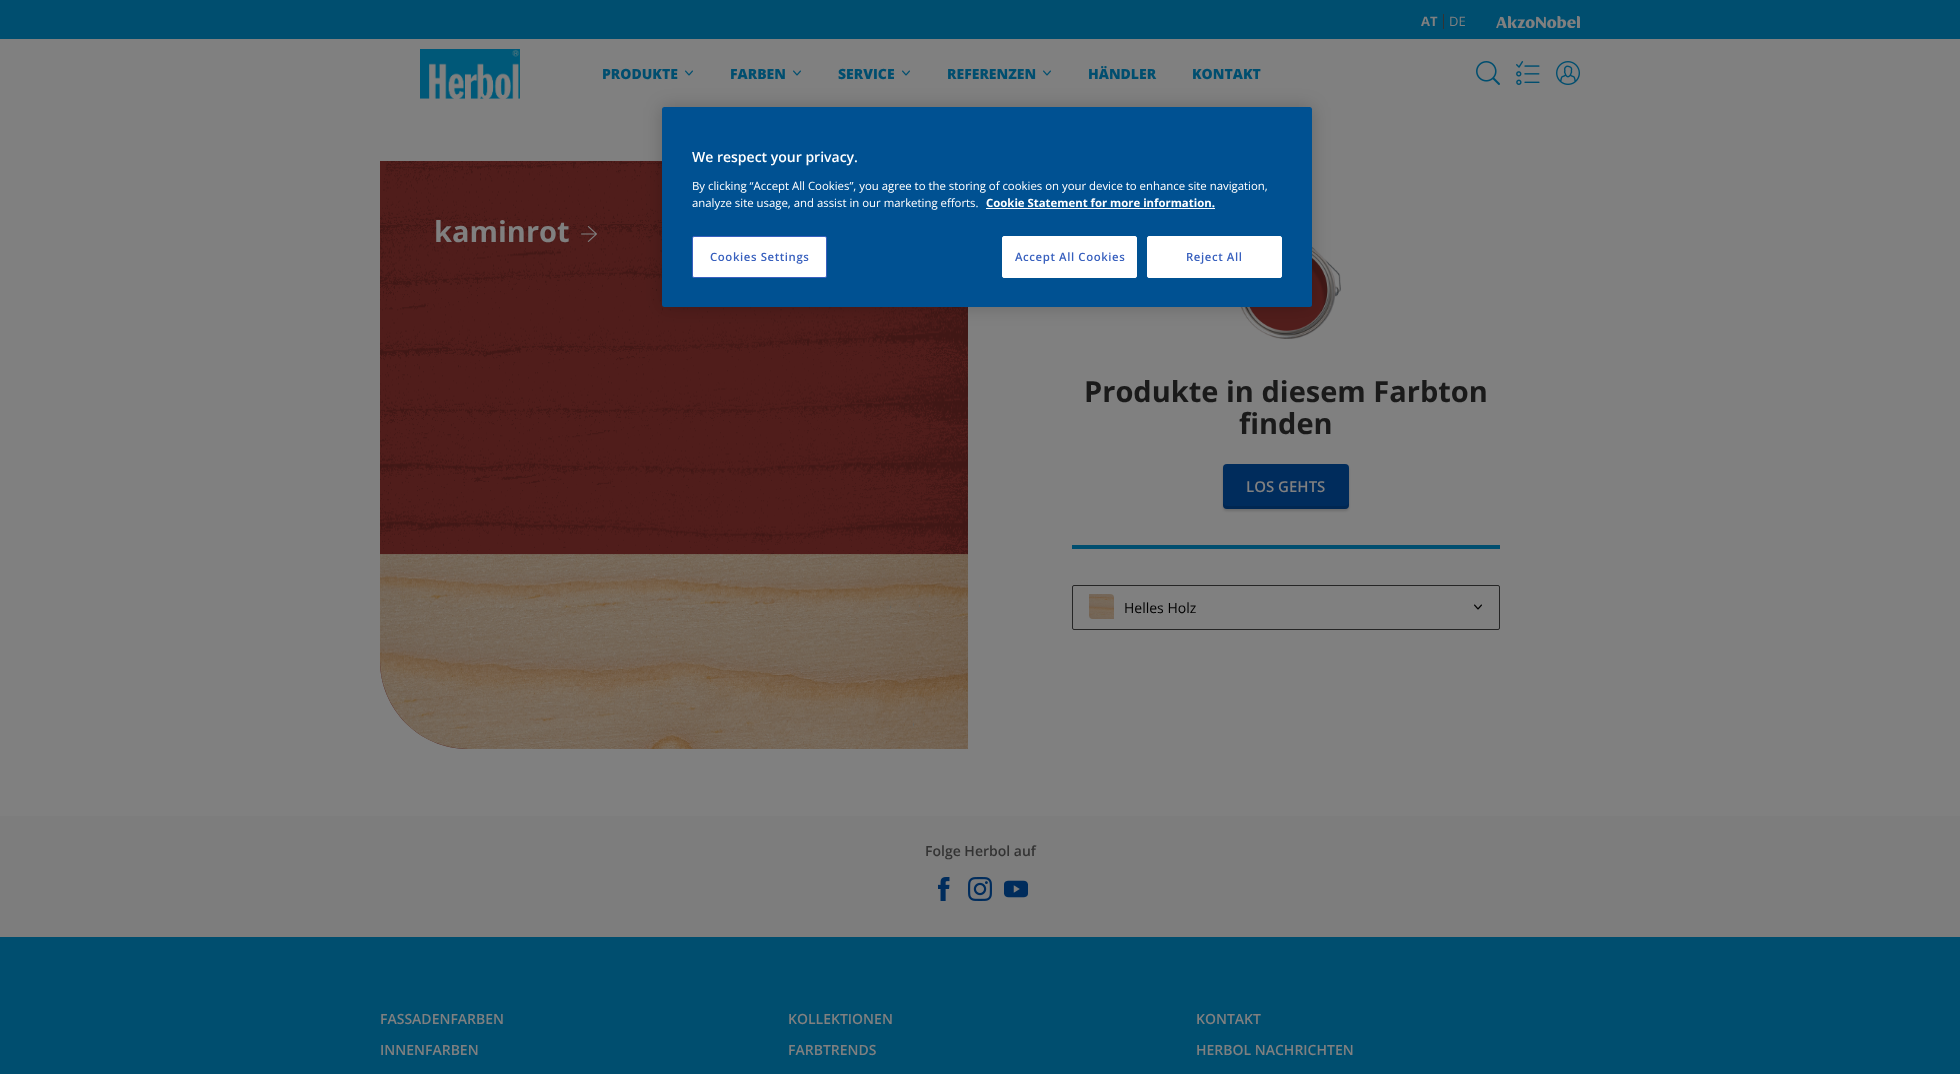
<svg xmlns="http://www.w3.org/2000/svg" width="1960" height="1074" viewBox="0 0 1960 1074">
  <defs>
    <filter id="blur1" x="-50%" y="-200%" width="200%" height="500%"><feGaussianBlur stdDeviation="1"/></filter>
    <filter id="blur2" x="-50%" y="-200%" width="200%" height="500%"><feGaussianBlur stdDeviation="9"/></filter>
  </defs>
  <rect width="100%" height="100%" fill="#808080"/>
  <rect x="0" y="0" width="1960" height="39" fill="#004e6f"/>
  <text x="1421" y="26" font-family="Open Sans" font-size="13" font-weight="bold" fill="#808080">AT</text>
  <rect x="1443" y="14" width="1" height="15" fill="#333333"/>
  <text x="1449" y="26" font-family="Open Sans" font-size="13" fill="#808080">DE</text>
  <image x="1496" y="16" width="84" height="12" href="img1.png"/>
  <image x="420" y="49" width="100" height="50" href="img2.png"/>
  <text x="602" y="79" font-family="Open Sans" font-size="14" font-weight="800" fill="#004e6f">PRODUKTE</text>
  <image x="685" y="70" width="8" height="6" href="img3.png"/>
  <text x="730" y="79" font-family="Open Sans" font-size="14" font-weight="800" fill="#004e6f">FARBEN</text>
  <image x="793" y="70" width="8" height="6" href="img3.png"/>
  <text x="838" y="79" font-family="Open Sans" font-size="14" font-weight="800" fill="#004e6f">SERVICE</text>
  <image x="902" y="70" width="8" height="6" href="img3.png"/>
  <text x="947" y="79" font-family="Open Sans" font-size="14" font-weight="800" fill="#004e6f">REFERENZEN</text>
  <image x="1043" y="70" width="8" height="6" href="img3.png"/>
  <text x="1088" y="79" font-family="Open Sans" font-size="14" font-weight="800" fill="#004e6f">HÄNDLER</text>
  <text x="1192" y="79" font-family="Open Sans" font-size="14" font-weight="800" fill="#004e6f">KONTAKT</text>
  <image x="1476" y="61" width="24" height="24" href="img4.png"/>
  <image x="1516" y="61" width="24" height="24" href="img5.png"/>
  <image x="1556" y="61" width="24" height="24" href="img6.png"/>
  <path d="M380 161H880C928.5 161 968 200.5 968 249V749H468C419.5 749 380 709.5 380 661Z" fill="#501d1b"/>
  <image x="380" y="161" width="588" height="588" href="img7.png"/>
  <text x="434" y="242" font-family="Open Sans" font-size="29" font-weight="bold" fill="#808080">kaminrot</text>
  <image x="581" y="226" width="16" height="16" href="img8.png"/>
  <rect x="1249" y="258" width="79" height="73" fill="#501d1b"/>
  <image x="1231" y="241" width="110" height="98" href="img9.png"/>
  <text x="1084" y="402" font-family="Open Sans" font-size="29" font-weight="bold" fill="#1a1a1a">Produkte in diesem Farbton</text>
  <text x="1239" y="434" font-family="Open Sans" font-size="29" font-weight="bold" fill="#1a1a1a">finden</text>
  <rect x="1223" y="466" width="126" height="45" rx="4" fill="#000000" fill-opacity="0.15" filter="url(#blur1)"/>
  <rect x="1223" y="464" width="126" height="45" rx="4" fill="#002c5c"/>
  <path d="M1223 502V505C1223 507 1225 509 1227 509H1345C1347 509 1349 507 1349 505V502C1349 504 1347 506 1345 506H1227C1225 506 1223 504 1223 502Z" fill="#000000" fill-opacity="0.1"/>
  <text x="1246" y="492" font-family="Open Sans" font-size="15" font-weight="600" fill="#808080">LOS GEHTS</text>
  <rect x="1072" y="545" width="428" height="4" fill="#004e6f"/>
  <rect x="1072.5" y="585.5" width="427" height="44" rx="1.5" fill="none" stroke="#252525"/>
  <image x="1089" y="594" width="25" height="25" href="img10.png"/>
  <text x="1124" y="613" font-family="Open Sans" font-size="14" fill="#000000">Helles Holz</text>
  <image x="1474" y="604" width="8" height="6" href="img11.png"/>
  <rect x="0" y="816" width="1960" height="121" fill="#7d7d7d"/>
  <text x="925" y="856" font-family="Open Sans" font-size="14" font-weight="600" fill="#333333">Folge Herbol auf</text>
  <image x="938" y="877" width="12" height="24" href="img12.png"/>
  <image x="968" y="877" width="24" height="24" href="img13.png"/>
  <image x="1004" y="880" width="24" height="18" href="img14.png"/>
  <rect x="0" y="937" width="1960" height="137" fill="#004e6f"/>
  <text x="380" y="1024" font-family="Open Sans" font-size="14" font-weight="600" fill="#808080">FASSADENFARBEN</text>
  <text x="380" y="1055" font-family="Open Sans" font-size="14" font-weight="600" fill="#808080">INNENFARBEN</text>
  <text x="788" y="1024" font-family="Open Sans" font-size="14" font-weight="600" fill="#808080">KOLLEKTIONEN</text>
  <text x="788" y="1055" font-family="Open Sans" font-size="14" font-weight="600" fill="#808080">FARBTRENDS</text>
  <text x="1196" y="1024" font-family="Open Sans" font-size="14" font-weight="600" fill="#808080">KONTAKT</text>
  <text x="1196" y="1055" font-family="Open Sans" font-size="14" font-weight="600" fill="#808080">HERBOL NACHRICHTEN</text>
  <rect x="662" y="107" width="650" height="200" rx="2.5" fill="#000000" fill-opacity="0.2" filter="url(#blur2)"/>
  <rect x="662" y="107" width="650" height="200" rx="2.5" fill="#005192"/>
  <text x="692" y="162" font-family="Open Sans" font-size="14" font-weight="600" fill="#ffffff">We respect your privacy.</text>
  <text x="692" y="190" font-family="Open Sans" font-size="11.38" fill="#ffffff">By clicking “Accept All Cookies”, you agree to the storing of cookies on your device to enhance site navigation,</text>
  <text x="692" y="207" font-family="Open Sans" font-size="11.38" fill="#ffffff">analyze site usage, and assist in our marketing efforts.</text>
  <text x="986" y="207" font-family="Open Sans" font-size="11.38" font-weight="bold" fill="#ffffff">Cookie Statement for more information.</text>
  <rect x="986" y="208" width="229" height="1" fill="#fafbff"/>
  <rect x="692.5" y="236.5" width="134" height="41" rx="1.5" fill="#ffffff" stroke="#3860be"/>
  <text x="710" y="261" font-family="Open Sans" font-size="11.38" font-weight="600" letter-spacing="0.6" fill="#3860be">Cookies Settings</text>
  <rect x="1002.5" y="236.5" width="134" height="41" rx="1.5" fill="#ffffff" stroke="#ffffff"/>
  <text x="1015" y="261" font-family="Open Sans" font-size="11.38" font-weight="600" letter-spacing="0.6" fill="#3860be">Accept All Cookies</text>
  <rect x="1147.5" y="236.5" width="134" height="41" rx="1.5" fill="#ffffff" stroke="#ffffff"/>
  <text x="1186" y="261" font-family="Open Sans" font-size="11.38" font-weight="600" letter-spacing="0.6" fill="#3860be">Reject All</text>
</svg>
